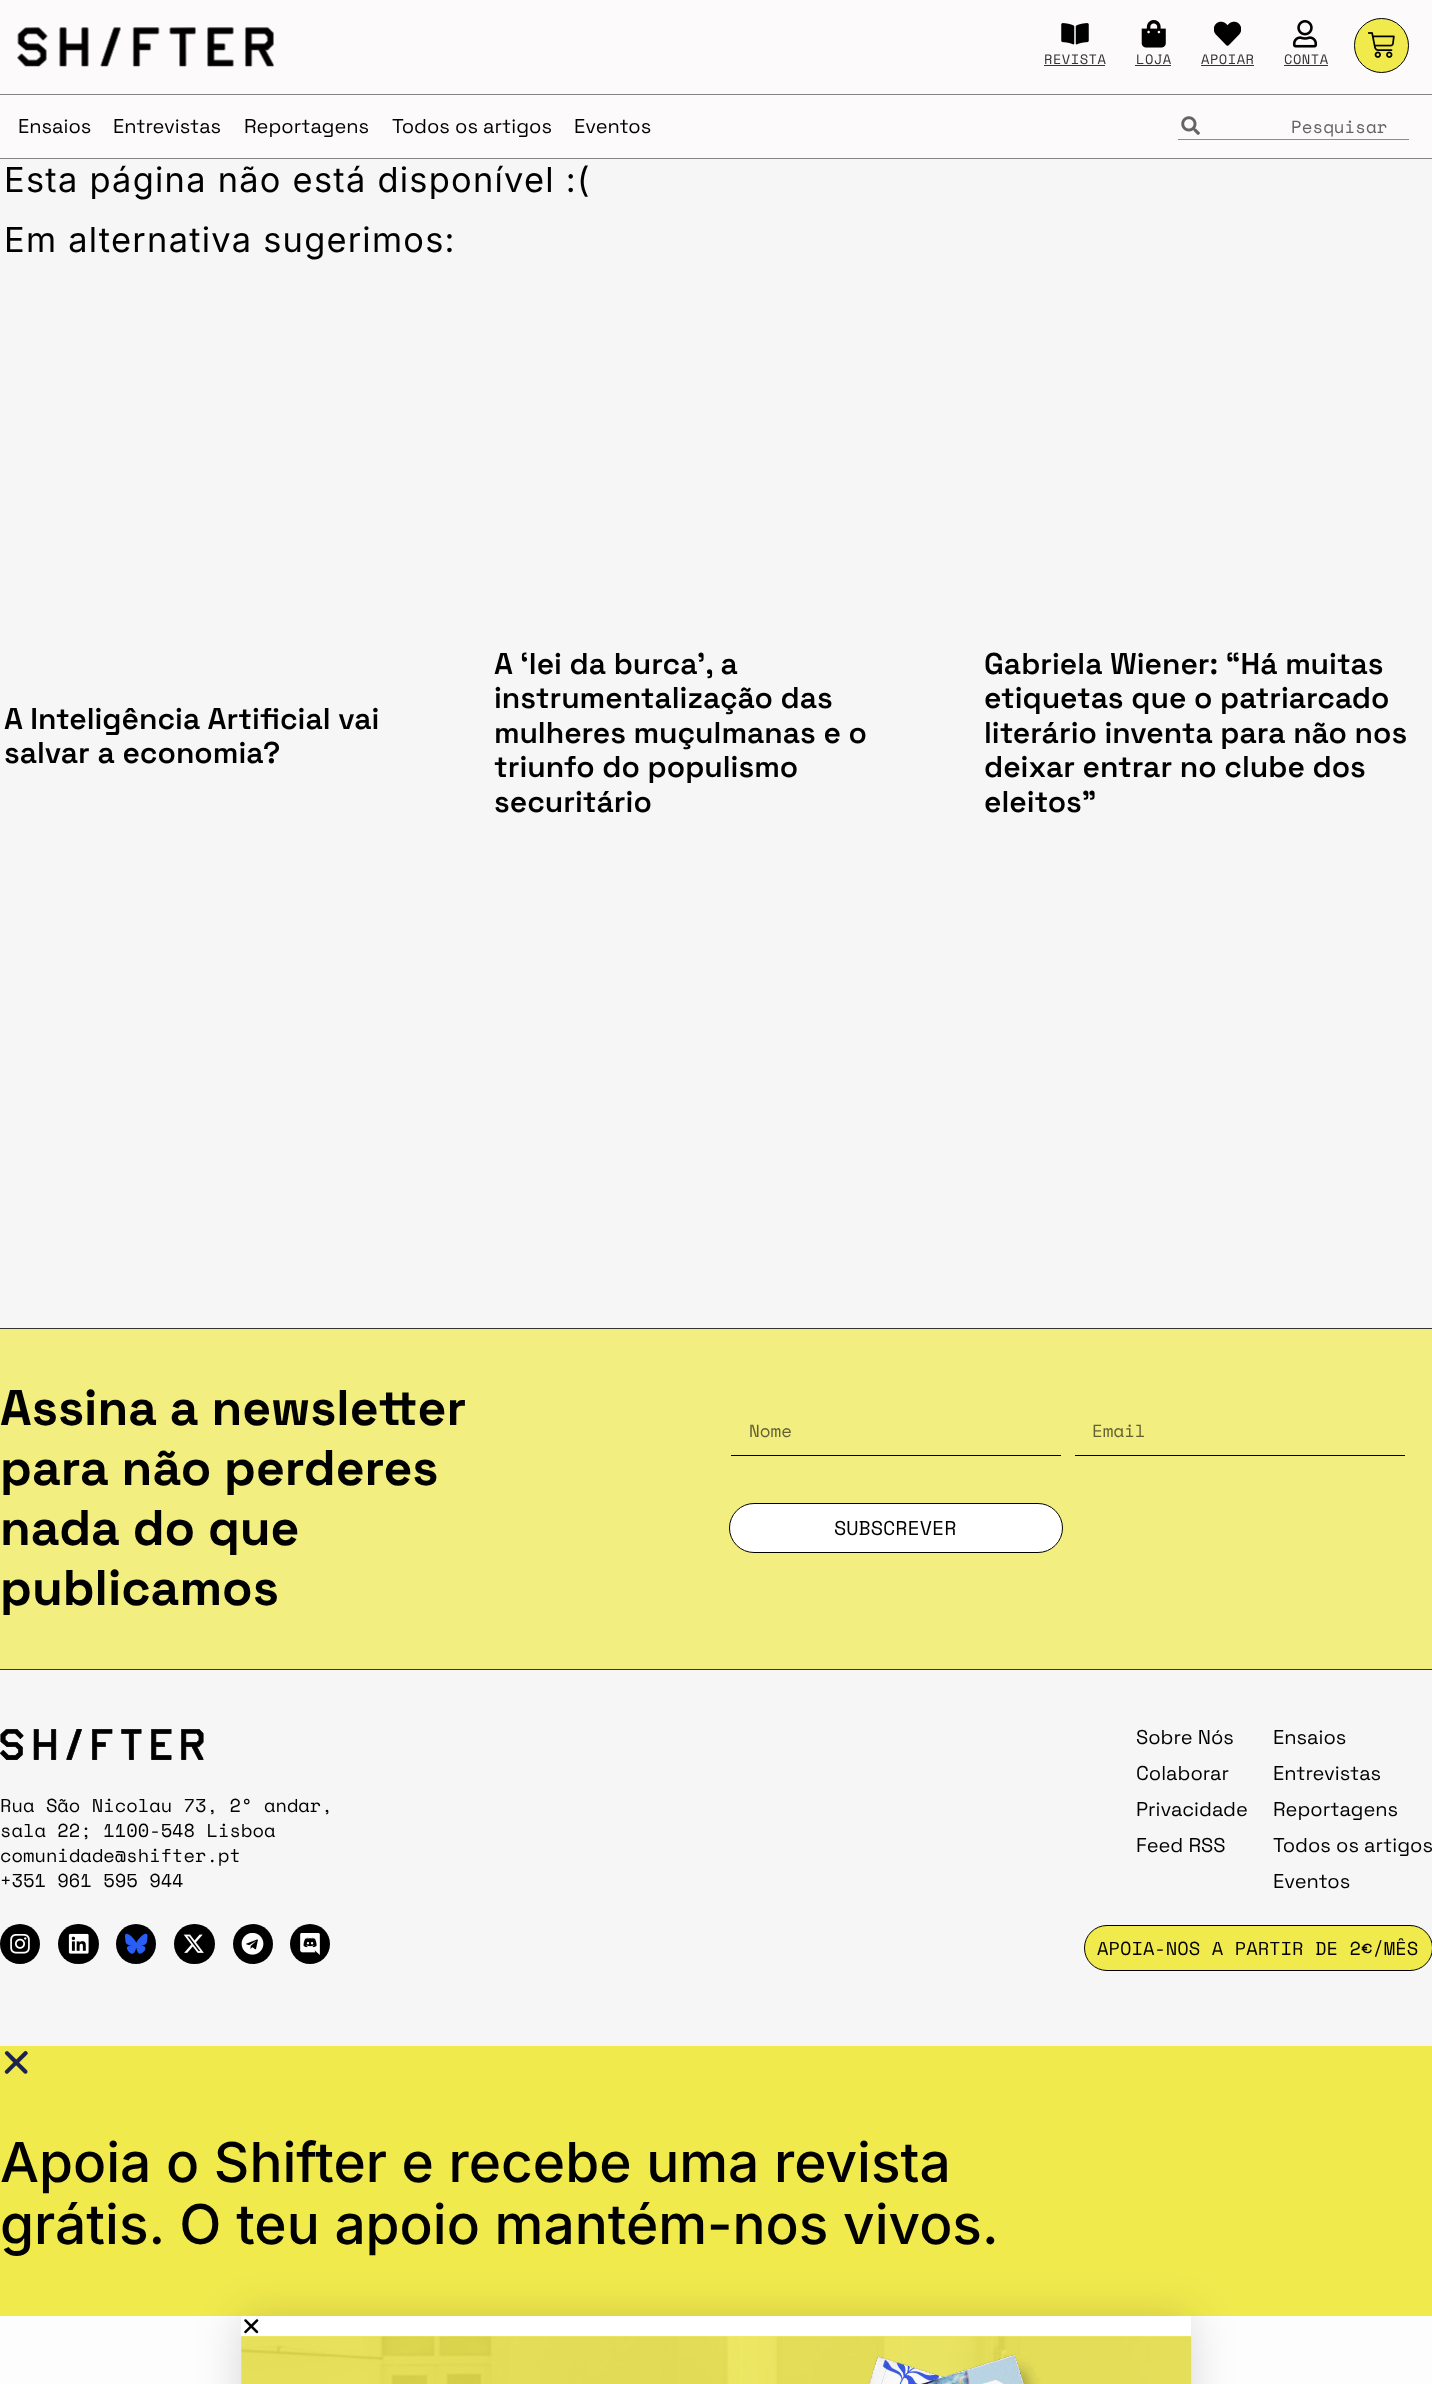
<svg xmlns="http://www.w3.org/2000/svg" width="1432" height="2384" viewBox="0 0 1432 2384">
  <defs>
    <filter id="blur1" x="-50%" y="-200%" width="200%" height="500%"><feGaussianBlur stdDeviation="22"/></filter>
  </defs>
  <rect width="100%" height="100%" fill="#f6f6f6"/>
  <rect x="0" y="0" width="1432" height="94" fill="#fcfafa"/>
  <image x="17" y="27" width="257" height="40" href="img1.png"/>
  <image x="1061" y="23" width="28" height="22" href="img2.png"/>
  <text x="1044" y="64" font-family="Space Mono" font-size="13.75" letter-spacing="0.5" fill="#333333">REVISTA</text>
  <rect x="1044" y="65" width="61" height="1" fill="#333333"/>
  <image x="1141" y="20" width="25" height="28" href="img3.png"/>
  <text x="1136" y="64" font-family="Space Mono" font-size="13.75" letter-spacing="0.5" fill="#333333">LOJA</text>
  <rect x="1135" y="65" width="36" height="1" fill="#333333"/>
  <image x="1214" y="21" width="27" height="25" href="img4.png"/>
  <text x="1201" y="64" font-family="Space Mono" font-size="13.75" letter-spacing="0.5" fill="#333333">APOIAR</text>
  <rect x="1201" y="65" width="53" height="1" fill="#333333"/>
  <image x="1292" y="20" width="26" height="28" href="img5.png"/>
  <text x="1284" y="64" font-family="Space Mono" font-size="13.75" letter-spacing="0.5" fill="#333333">CONTA</text>
  <rect x="1284" y="65" width="44" height="1" fill="#333333"/>
  <circle cx="1381.5" cy="45.5" r="27" fill="#f1ea4d" stroke="#000000"/>
  <image x="1368" y="32" width="27" height="26" href="img6.png"/>
  <rect x="0" y="95" width="1432" height="63" fill="#fcfafa"/>
  <rect x="0" y="94" width="1432" height="1" fill="#838383"/>
  <rect x="0" y="158" width="1432" height="1" fill="#838383"/>
  <text x="18" y="133" font-family="Space Grotesk" font-size="20" fill="#000000">Ensaios</text>
  <text x="113" y="133" font-family="Space Grotesk" font-size="20" fill="#000000">Entrevistas</text>
  <text x="244" y="133" font-family="Space Grotesk" font-size="20" fill="#000000">Reportagens</text>
  <text x="392" y="133" font-family="Space Grotesk" font-size="20" fill="#000000">Todos os artigos</text>
  <text x="574" y="133" font-family="Space Grotesk" font-size="20" fill="#000000">Eventos</text>
  <rect x="1178" y="139" width="231" height="1" fill="#8d8c8c"/>
  <image x="1181" y="116" width="19" height="19" href="img7.png"/>
  <text x="1291" y="133" font-family="Space Mono" font-size="17.5" fill="#656464">Pesquisar</text>
  <text x="4" y="192" font-family="Inter" font-size="34.4" letter-spacing="1.25" fill="#000000">Esta página não está disponível :(</text>
  <text x="4" y="252" font-family="Inter" font-size="34.4" letter-spacing="1.25" fill="#000000">Em alternativa sugerimos:</text>
  <text x="4" y="729" font-family="Space Grotesk" font-size="30" font-weight="600" fill="#000000">A Inteligência Artificial vai</text>
  <text x="4" y="763" font-family="Space Grotesk" font-size="30" font-weight="600" fill="#000000">salvar a economia?</text>
  <text x="494" y="674" font-family="Space Grotesk" font-size="30" font-weight="600" fill="#000000">A ‘lei da burca’, a</text>
  <text x="494" y="708" font-family="Space Grotesk" font-size="30" font-weight="600" fill="#000000">instrumentalização das</text>
  <text x="494" y="743" font-family="Space Grotesk" font-size="30" font-weight="600" fill="#000000">mulheres muçulmanas e o</text>
  <text x="494" y="777" font-family="Space Grotesk" font-size="30" font-weight="600" fill="#000000">triunfo do populismo</text>
  <text x="494" y="812" font-family="Space Grotesk" font-size="30" font-weight="600" fill="#000000">securitário</text>
  <text x="984" y="674" font-family="Space Grotesk" font-size="30" font-weight="600" fill="#000000">Gabriela Wiener: “Há muitas</text>
  <text x="984" y="708" font-family="Space Grotesk" font-size="30" font-weight="600" fill="#000000">etiquetas que o patriarcado</text>
  <text x="984" y="743" font-family="Space Grotesk" font-size="30" font-weight="600" fill="#000000">literário inventa para não nos</text>
  <text x="984" y="777" font-family="Space Grotesk" font-size="30" font-weight="600" fill="#000000">deixar entrar no clube dos</text>
  <text x="984" y="812" font-family="Space Grotesk" font-size="30" font-weight="600" fill="#000000">eleitos”</text>
  <rect x="0" y="1329" width="1432" height="340" fill="#f3ee80"/>
  <rect x="0" y="1328" width="1432" height="1" fill="#333333"/>
  <rect x="0" y="1669" width="1432" height="1" fill="#333333"/>
  <text x="0" y="1425" font-family="Space Grotesk" font-size="50" font-weight="bold" fill="#000000">Assina a newsletter</text>
  <text x="0" y="1485" font-family="Space Grotesk" font-size="50" font-weight="bold" fill="#000000">para não perderes</text>
  <text x="0" y="1545" font-family="Space Grotesk" font-size="50" font-weight="bold" fill="#000000">nada do que</text>
  <text x="0" y="1605" font-family="Space Grotesk" font-size="50" font-weight="bold" fill="#000000">publicamos</text>
  <rect x="731" y="1455" width="330" height="1" fill="#000000"/>
  <text x="749" y="1437" font-family="Space Mono" font-size="17.5" fill="#615f33">Nome</text>
  <rect x="1075" y="1455" width="330" height="1" fill="#000000"/>
  <text x="1092" y="1437" font-family="Space Mono" font-size="17.5" fill="#615f33">Email</text>
  <rect x="729.5" y="1503.5" width="333" height="49" rx="24.5" fill="#ffffff" stroke="#000000"/>
  <text x="834" y="1535" font-family="Space Mono" font-size="20" fill="#000000">SUBSCREVER</text>
  <image x="0" y="1729" width="204" height="31" href="img8.png"/>
  <text x="0" y="1812" font-family="Space Mono" font-size="18.75" fill="#000000">Rua São Nicolau 73, 2º andar,</text>
  <text x="0" y="1837" font-family="Space Mono" font-size="18.75" fill="#000000">sala 22; 1100-548 Lisboa</text>
  <text x="0" y="1862" font-family="Space Mono" font-size="18.75" fill="#000000">comunidade@shifter.pt</text>
  <text x="0" y="1887" font-family="Space Mono" font-size="18.75" fill="#000000">+351 961 595 944</text>
  <circle cx="20" cy="1944" r="20" fill="#000000"/>
  <image x="10" y="1934" width="20" height="20" href="img9.png"/>
  <rect x="58" y="1924" width="41" height="40" rx="20" fill="#000000"/>
  <image x="68" y="1933" width="21" height="21" href="img10.png"/>
  <circle cx="136" cy="1944" r="20" fill="#000000"/>
  <image x="125" y="1933" width="23" height="21" href="img11.png"/>
  <rect x="174" y="1924" width="41" height="40" rx="20" fill="#000000"/>
  <image x="183" y="1934" width="21" height="19" href="img12.png"/>
  <circle cx="253" cy="1944" r="20" fill="#000000"/>
  <image x="241" y="1933" width="23" height="22" href="img13.png"/>
  <circle cx="310" cy="1944" r="20" fill="#000000"/>
  <image x="300" y="1933" width="20" height="22" href="img14.png"/>
  <text x="1136" y="1744" font-family="Space Grotesk" font-size="20" fill="#000000">Sobre Nós</text>
  <text x="1136" y="1780" font-family="Space Grotesk" font-size="20" fill="#000000">Colaborar</text>
  <text x="1136" y="1816" font-family="Space Grotesk" font-size="20" fill="#000000">Privacidade</text>
  <text x="1136" y="1852" font-family="Space Grotesk" font-size="20" fill="#000000">Feed RSS</text>
  <text x="1273" y="1744" font-family="Space Grotesk" font-size="20" fill="#000000">Ensaios</text>
  <text x="1273" y="1780" font-family="Space Grotesk" font-size="20" fill="#000000">Entrevistas</text>
  <text x="1273" y="1816" font-family="Space Grotesk" font-size="20" fill="#000000">Reportagens</text>
  <text x="1273" y="1852" font-family="Space Grotesk" font-size="20" fill="#000000">Todos os artigos</text>
  <text x="1273" y="1888" font-family="Space Grotesk" font-size="20" fill="#000000">Eventos</text>
  <rect x="1084.5" y="1925.5" width="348" height="45" rx="22.5" fill="#f1ea4d" stroke="#000000"/>
  <text x="1097" y="1955" font-family="Space Mono" font-size="18.75" fill="#000000">APOIA-NOS A PARTIR DE 2€/MÊS</text>
  <rect x="0" y="2046" width="1432" height="270" fill="#f1ea4d"/>
  <image x="4" y="2051" width="24" height="23" href="img15.png"/>
  <text x="0" y="2182" font-family="Inter" font-size="55" font-weight="500" fill="#000000">Apoia o Shifter e recebe uma revista</text>
  <rect x="0" y="2316" width="1432" height="68" fill="#fdfdfd"/>
  <rect x="241" y="2316" width="950" height="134" fill="#000000" fill-opacity="0.15" filter="url(#blur1)"/>
  <text x="0" y="2244" font-family="Inter" font-size="55" font-weight="500" fill="#000000">grátis. O teu apoio mantém-nos vivos.</text>
  <rect x="241" y="2316" width="950" height="68" fill="#ffffff"/>
  <image x="244" y="2319" width="15" height="15" href="img16.png"/>
  <image x="241" y="2336" width="951" height="48" href="img17.png"/>
  <rect x="241" y="2336" width="950" height="48" fill="#f1ea4d" fill-opacity="0.85"/>
  <image x="868" y="2354" width="174" height="30" href="img18.png"/>
</svg>
